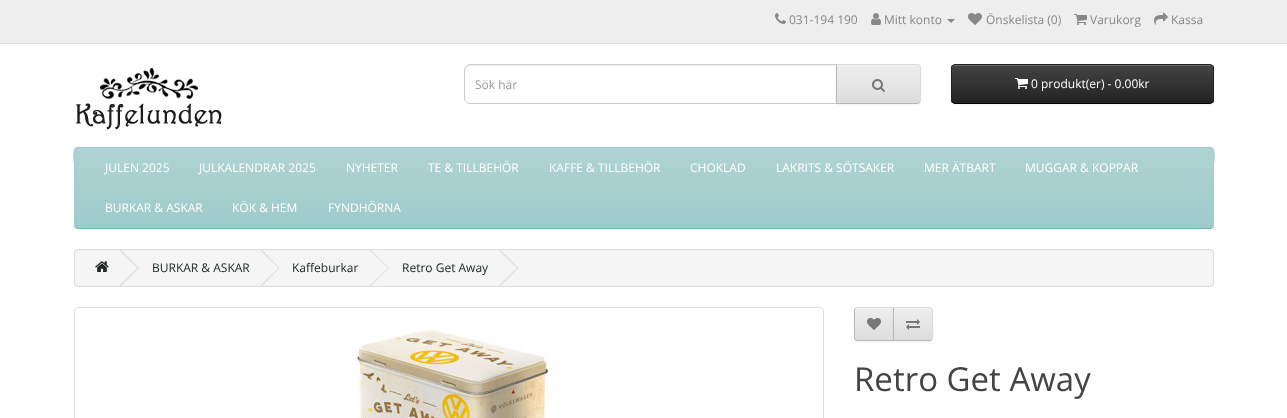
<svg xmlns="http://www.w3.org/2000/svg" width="1287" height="418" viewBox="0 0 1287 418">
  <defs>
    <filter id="blur1" x="-50%" y="-200%" width="200%" height="500%"><feGaussianBlur stdDeviation="1"/></filter>
    <clipPath id="clip1"><path d="M836 64H917C919 64 921 66 921 68V100C921 102 919 104 917 104H836Z"/></clipPath>
    <linearGradient id="g1" gradientUnits="userSpaceOnUse" x1="879" y1="65" x2="879" y2="103"><stop offset="0" stop-color="#eeeeee"/><stop offset="1" stop-color="#dddddd"/></linearGradient>
    <clipPath id="clip2"><rect x="951" y="64" width="263" height="40" rx="4"/></clipPath>
    <linearGradient id="g2" gradientUnits="userSpaceOnUse" x1="1083" y1="65" x2="1083" y2="103"><stop offset="0" stop-color="#444444"/><stop offset="1" stop-color="#222222"/></linearGradient>
    <clipPath id="clip3"><rect x="74" y="147" width="1140" height="82" rx="4"/></clipPath>
    <linearGradient id="g3" gradientUnits="userSpaceOnUse" x1="644" y1="148" x2="644" y2="228"><stop offset="0" stop-color="#afd3d2"/><stop offset="1" stop-color="#9ecbca"/></linearGradient>
    <clipPath id="clip4"><path d="M858 307H894V341H858C856 341 854 339 854 337V311C854 309 856 307 858 307Z"/></clipPath>
    <linearGradient id="g4" gradientUnits="userSpaceOnUse" x1="874" y1="308" x2="874" y2="340"><stop offset="0" stop-color="#eeeeee"/><stop offset="1" stop-color="#dddddd"/></linearGradient>
    <clipPath id="clip5"><path d="M893 307H929C931 307 933 309 933 311V337C933 339 931 341 929 341H893Z"/></clipPath>
    <linearGradient id="g5" gradientUnits="userSpaceOnUse" x1="913" y1="308" x2="913" y2="340"><stop offset="0" stop-color="#eeeeee"/><stop offset="1" stop-color="#dddddd"/></linearGradient>
  </defs>
  <rect width="100%" height="100%" fill="#ffffff"/>
  <rect x="0" y="0" width="1287" height="43" fill="#eeeeee"/>
  <rect x="0" y="43" width="1287" height="1" fill="#e2e2e2"/>
  <image x="775" y="13" width="11" height="11" href="img1.png"/>
  <text x="789" y="24" font-family="Open Sans" font-size="12" fill="#888888">031-194 190</text>
  <image x="871" y="13" width="10" height="12" href="img2.png"/>
  <text x="884" y="24" font-family="Open Sans" font-size="12" fill="#888888">Mitt konto</text>
  <path d="M947 19H955L951 23Z" fill="#888888"/>
  <image x="968" y="13" width="14" height="12" href="img3.png"/>
  <text x="986" y="24" font-family="Open Sans" font-size="12" fill="#888888">Önskelista (0)</text>
  <image x="1074" y="14" width="13" height="11" href="img4.png"/>
  <text x="1090" y="24" font-family="Open Sans" font-size="12" fill="#888888">Varukorg</text>
  <image x="1154" y="12" width="14" height="13" href="img5.png"/>
  <text x="1171" y="24" font-family="Open Sans" font-size="12" fill="#888888">Kassa</text>
  <image x="76" y="68" width="146" height="62" href="img6.png"/>
  <path d="M470 66H836V65H470C467 65 465 67 465 70V71C465 68 467 66 470 66Z" fill="#ececec"/>
  <path d="M470 64.5H836.5V103.5H470C467 103.5 464.5 101 464.5 98V70C464.5 67 467 64.5 470 64.5Z" fill="none" stroke="#cccccc"/>
  <text x="475" y="89" font-family="Open Sans" font-size="12" fill="#999999">Sök här</text>
  <rect x="836" y="65" width="85" height="40" rx="4" fill="#000000" fill-opacity="0.05" filter="url(#blur1)"/>
  <path d="M836 64H917C919 64 921 66 921 68V100C921 102 919 104 917 104H836Z" fill="#e7e7e7"/>
  <g clip-path="url(#clip1)">
    <rect x="837" y="65" width="84" height="38" fill="url(#g1)"/>
  </g>
  <path d="M837 66H917C919 66 920 67 920 69V68C920 66 919 65 917 65H837Z" fill="#f1f1f1"/>
  <path d="M836 64L837 65H918L919 66L920 65L917 64Z" fill="#dddddd"/>
  <path d="M921 100V68C921 67 920.5 66 920 65L919 66C920 66 920 67 920 68V100C920 101 920 102 919 102L920 103C920.5 102 921 101 921 100Z" fill="#dddddd"/>
  <path d="M917 104L920 103L919 102L918 103H837L836 104Z" fill="#b3b3b3"/>
  <path d="M836 64V104L837 103V65Z" fill="#b7b7b7"/>
  <image x="872" y="79" width="13" height="13" href="img7.png"/>
  <rect x="951" y="65" width="263" height="40" rx="4" fill="#000000" fill-opacity="0.05" filter="url(#blur1)"/>
  <g clip-path="url(#clip2)">
    <rect x="951" y="65" width="263" height="38" fill="url(#g2)"/>
  </g>
  <path d="M955 66H1211L1213 67V69V68C1213 66 1212 65 1210 65H955C953 65 952 66 952 68V69C952 67 953 66 955 66Z" fill="#696969"/>
  <path d="M1212.5 102.5C1212 103 1211 103.5 1210 103.5H955C954 103.5 953 103 952.5 102.5" fill="none" stroke="#000000"/>
  <path d="M952.5 102.5C952 102 951.5 101 951.5 100V68C951.5 67 952 66 952.5 65.5C953 65 954 64.5 955 64.5H1210C1211 64.5 1212 65 1212.5 65.5C1213 66 1213.5 67 1213.5 68V100C1213.5 101 1213 102 1212.5 102.5" fill="none" stroke="#222222"/>
  <image x="1015" y="78" width="13" height="11" href="img8.png"/>
  <text x="1031" y="88" font-family="Open Sans" font-size="12" fill="#ffffff">0 produkt(er) - 0.00kr</text>
  <rect x="74" y="147" width="1140" height="82" rx="4" fill="#a9d0cf"/>
  <g clip-path="url(#clip3)">
    <rect x="74" y="148" width="1140" height="80" fill="url(#g3)"/>
  </g>
  <path d="M1212.5 227.5L1210 228.5H78L75.5 227.5" fill="none" stroke="#6fb9b6"/>
  <path d="M75.5 227.5L74.5 225V163.5C74.5 163 71.5 147.5 78 147.5H1210C1216.5 147.5 1213.5 163 1213.5 163.5V225L1212.5 227.5" fill="none" stroke="#9ecbca"/>
  <text x="105" y="172" font-family="Open Sans" font-size="12" fill="#ffffff">JULEN 2025</text>
  <text x="199" y="172" font-family="Open Sans" font-size="12" fill="#ffffff">JULKALENDRAR 2025</text>
  <text x="346" y="172" font-family="Open Sans" font-size="12" fill="#ffffff">NYHETER</text>
  <text x="428" y="172" font-family="Open Sans" font-size="12" fill="#ffffff">TE &amp; TILLBEHÖR</text>
  <text x="549" y="172" font-family="Open Sans" font-size="12" fill="#ffffff">KAFFE &amp; TILLBEHÖR</text>
  <text x="690" y="172" font-family="Open Sans" font-size="12" fill="#ffffff">CHOKLAD</text>
  <text x="776" y="172" font-family="Open Sans" font-size="12" fill="#ffffff">LAKRITS &amp; SÖTSAKER</text>
  <text x="924" y="172" font-family="Open Sans" font-size="12" fill="#ffffff">MER ÄTBART</text>
  <text x="1025" y="172" font-family="Open Sans" font-size="12" fill="#ffffff">MUGGAR &amp; KOPPAR</text>
  <text x="105" y="212" font-family="Open Sans" font-size="12" fill="#ffffff">BURKAR &amp; ASKAR</text>
  <text x="232" y="212" font-family="Open Sans" font-size="12" fill="#ffffff">KÖK &amp; HEM</text>
  <text x="328" y="212" font-family="Open Sans" font-size="12" fill="#ffffff">FYNDHÖRNA</text>
  <rect x="74.5" y="249.5" width="1139" height="37" rx="3.5" fill="#f5f5f5" stroke="#dddddd"/>
  <image x="95" y="261" width="14" height="11" href="img9.png"/>
  <path d="M119.5 250.5L120.5 249.5L139 268L138 268.5Z" fill="#dddddd"/>
  <path d="M119.5 285.5L138 267.5L139 268L120.5 286.5Z" fill="#dddddd"/>
  <text x="152" y="272" font-family="Open Sans" font-size="12" fill="#202828">BURKAR &amp; ASKAR</text>
  <path d="M260.5 250.5L261.5 249.5L279.5 268L279 268.5Z" fill="#dddddd"/>
  <path d="M260.5 285.5L279 267.5L279.5 268L261.5 286.5Z" fill="#dddddd"/>
  <text x="292" y="272" font-family="Open Sans" font-size="12" fill="#202828">Kaffeburkar</text>
  <path d="M370 250.5L370.5 249.5L389 268L388.5 268.5Z" fill="#dddddd"/>
  <path d="M370 285.5L388.5 267.5L389 268L370.5 286.5Z" fill="#dddddd"/>
  <text x="402" y="272" font-family="Open Sans" font-size="12" fill="#202828">Retro Get Away</text>
  <path d="M499 250.5L500 249.5L518.5 268L517.5 268.5Z" fill="#dddddd"/>
  <path d="M499 285.5L517.5 267.5L518.5 268L500 286.5Z" fill="#dddddd"/>
  <rect x="74.5" y="307.5" width="749" height="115" rx="3.5" fill="none" stroke="#dddddd"/>
  <image x="355" y="329" width="198" height="89" href="img10.png"/>
  <rect x="854" y="308" width="40" height="34" rx="4" fill="#000000" fill-opacity="0.05" filter="url(#blur1)"/>
  <g clip-path="url(#clip4)">
    <rect x="854" y="308" width="39" height="32" fill="url(#g4)"/>
  </g>
  <path d="M858 309H893V308H858C856.5 308 855 309.5 855 311V312C855 310 856 309 858 309Z" fill="#f1f1f1"/>
  <path d="M858 307C857 307 856 307.5 855 308L856 309C856 308 857 308 858 308H893L894 307Z" fill="#dddddd"/>
  <path d="M894 341L893 340H858C857 340 856 340 856 339L855 340C856 340.5 857 341 858 341Z" fill="#b3b3b3"/>
  <path d="M854 311V337C854 338 854.5 339 855 340L856 339C855 339 855 338 855 337V311C855 310 855 309 856 309L855 308C854.5 309 854 310 854 311Z" fill="#b7b7b7"/>
  <image x="867" y="318" width="14" height="12" href="img11.png"/>
  <rect x="893" y="308" width="40" height="34" rx="4" fill="#000000" fill-opacity="0.05" filter="url(#blur1)"/>
  <g clip-path="url(#clip5)">
    <rect x="894" y="308" width="39" height="32" fill="url(#g5)"/>
  </g>
  <path d="M894 309H929C931 309 932 310 932 312V311C932 309.5 930.5 308 929 308H894Z" fill="#f1f1f1"/>
  <path d="M893 307L894 308H929C930 308 931 308 931 309L932 308C931 307.5 930 307 929 307Z" fill="#dddddd"/>
  <path d="M933 337V311C933 310 932.5 309 932 308L931 309C932 309 932 310 932 311V337C932 338 932 339 931 339L932 340C932.5 339 933 338 933 337Z" fill="#dddddd"/>
  <path d="M929 341C930 341 931 340.5 932 340L931 339C931 340 930 340 929 340H894L893 341Z" fill="#b3b3b3"/>
  <path d="M893 307V341L894 340V308Z" fill="#b7b7b7"/>
  <image x="906" y="319" width="14" height="11" href="img12.png"/>
  <text x="854" y="391" font-family="Open Sans" font-size="33" fill="#444444">Retro Get Away</text>
</svg>
